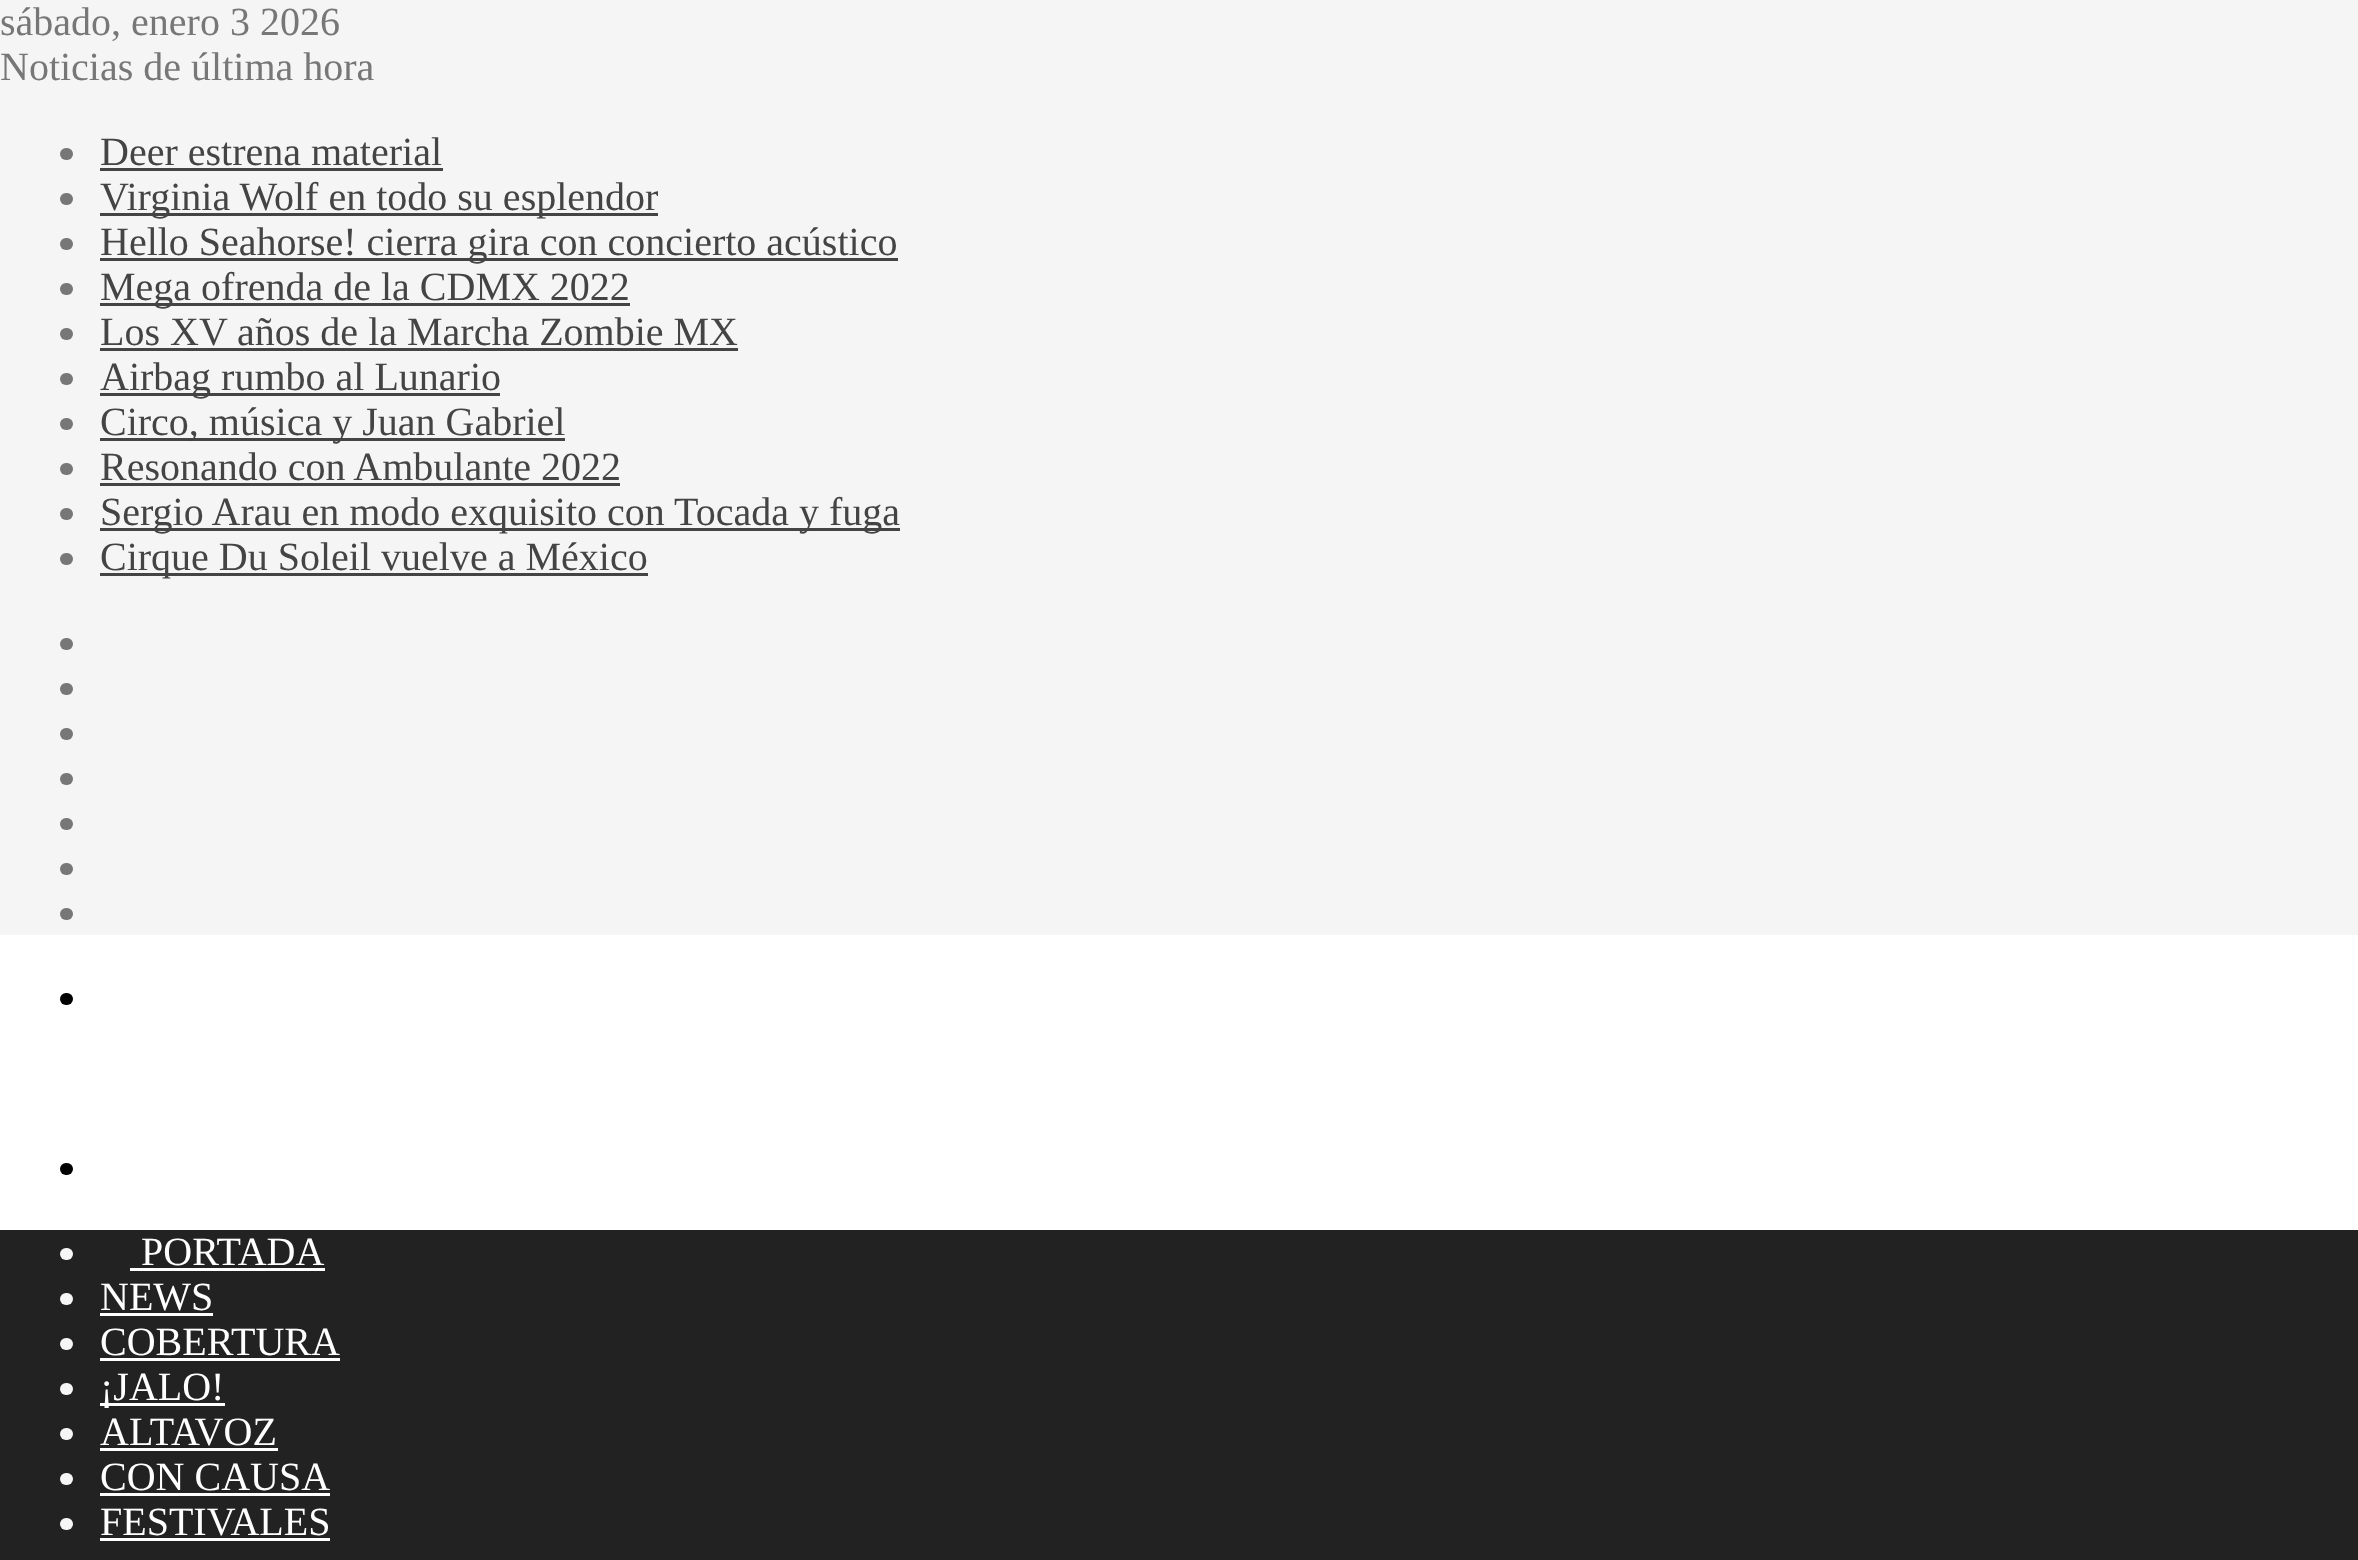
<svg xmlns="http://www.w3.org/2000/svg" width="2358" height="1560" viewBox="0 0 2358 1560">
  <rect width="100%" height="100%" fill="#ffffff"/>
  <rect x="0" y="0" width="2358" height="935" fill="#f5f5f5"/>
  <text x="0" y="35" font-family="Liberation Serif" font-size="40" fill="#777777">sábado, enero 3 2026</text>
  <text x="0" y="80" font-family="Liberation Serif" font-size="40" fill="#777777">Noticias de última hora</text>
  <rect x="60" y="148" width="13" height="12" rx="6" fill="#777777"/>
  <text x="100" y="165" font-family="Liberation Serif" font-size="40" fill="#444444">Deer estrena material</text>
  <rect x="100" y="168" width="343" height="3" fill="#444444"/>
  <rect x="60" y="193" width="13" height="12" rx="6" fill="#777777"/>
  <rect x="100" y="213" width="558" height="3" fill="#444444"/>
  <text x="100" y="210" font-family="Liberation Serif" font-size="40" fill="#444444">Virginia Wolf en todo su esplendor</text>
  <rect x="60" y="238" width="13" height="12" rx="6" fill="#777777"/>
  <rect x="100" y="258" width="798" height="3" fill="#444444"/>
  <text x="100" y="255" font-family="Liberation Serif" font-size="40" fill="#444444">Hello Seahorse! cierra gira con concierto acústico</text>
  <rect x="60" y="283" width="13" height="12" rx="6" fill="#777777"/>
  <rect x="100" y="303" width="530" height="3" fill="#444444"/>
  <text x="100" y="300" font-family="Liberation Serif" font-size="40" fill="#444444">Mega ofrenda de la CDMX 2022</text>
  <rect x="60" y="328" width="13" height="12" rx="6" fill="#777777"/>
  <text x="100" y="345" font-family="Liberation Serif" font-size="40" fill="#444444">Los XV años de la Marcha Zombie MX</text>
  <rect x="100" y="348" width="638" height="3" fill="#444444"/>
  <rect x="60" y="373" width="13" height="12" rx="6" fill="#777777"/>
  <rect x="100" y="393" width="400" height="3" fill="#444444"/>
  <text x="100" y="390" font-family="Liberation Serif" font-size="40" fill="#444444">Airbag rumbo al Lunario</text>
  <rect x="60" y="418" width="13" height="12" rx="6" fill="#777777"/>
  <rect x="100" y="438" width="465" height="3" fill="#444444"/>
  <text x="100" y="435" font-family="Liberation Serif" font-size="40" fill="#444444">Circo, música y Juan Gabriel</text>
  <rect x="60" y="463" width="13" height="12" rx="6" fill="#777777"/>
  <text x="100" y="480" font-family="Liberation Serif" font-size="40" fill="#444444">Resonando con Ambulante 2022</text>
  <rect x="100" y="483" width="520" height="3" fill="#444444"/>
  <rect x="60" y="508" width="13" height="12" rx="6" fill="#777777"/>
  <rect x="100" y="528" width="800" height="3" fill="#444444"/>
  <text x="100" y="525" font-family="Liberation Serif" font-size="40" fill="#444444">Sergio Arau en modo exquisito con Tocada y fuga</text>
  <rect x="60" y="553" width="13" height="12" rx="6" fill="#777777"/>
  <rect x="100" y="573" width="548" height="3" fill="#444444"/>
  <text x="100" y="570" font-family="Liberation Serif" font-size="40" fill="#444444">Cirque Du Soleil vuelve a México</text>
  <rect x="60" y="638" width="13" height="12" rx="6" fill="#777777"/>
  <rect x="60" y="683" width="13" height="12" rx="6" fill="#777777"/>
  <rect x="60" y="728" width="13" height="12" rx="6" fill="#777777"/>
  <rect x="60" y="773" width="13" height="12" rx="6" fill="#777777"/>
  <rect x="60" y="818" width="13" height="12" rx="6" fill="#777777"/>
  <rect x="60" y="863" width="13" height="12" rx="6" fill="#777777"/>
  <rect x="60" y="908" width="13" height="12" rx="6" fill="#777777"/>
  <rect x="60" y="993" width="13" height="12" rx="6" fill="#000000"/>
  <rect x="60" y="1163" width="13" height="12" rx="6" fill="#000000"/>
  <rect x="0" y="1230" width="2358" height="330" fill="#222222"/>
  <rect x="60" y="1248" width="13" height="12" rx="6" fill="#f6f6f6"/>
  <text x="141" y="1265" font-family="Liberation Serif" font-size="40" fill="#ffffff">PORTADA</text>
  <rect x="130" y="1268" width="195" height="3" fill="#ffffff"/>
  <rect x="60" y="1293" width="13" height="12" rx="6" fill="#f6f6f6"/>
  <text x="100" y="1310" font-family="Liberation Serif" font-size="40" fill="#ffffff">NEWS</text>
  <rect x="100" y="1313" width="113" height="3" fill="#ffffff"/>
  <rect x="60" y="1338" width="13" height="12" rx="6" fill="#f6f6f6"/>
  <text x="100" y="1355" font-family="Liberation Serif" font-size="40" fill="#ffffff">COBERTURA</text>
  <rect x="100" y="1358" width="240" height="3" fill="#ffffff"/>
  <rect x="60" y="1383" width="13" height="12" rx="6" fill="#f6f6f6"/>
  <rect x="100" y="1403" width="125" height="3" fill="#ffffff"/>
  <text x="100" y="1400" font-family="Liberation Serif" font-size="40" fill="#ffffff">¡JALO!</text>
  <rect x="60" y="1428" width="13" height="12" rx="6" fill="#f6f6f6"/>
  <text x="100" y="1445" font-family="Liberation Serif" font-size="40" fill="#ffffff">ALTAVOZ</text>
  <rect x="100" y="1448" width="178" height="3" fill="#ffffff"/>
  <rect x="60" y="1473" width="13" height="12" rx="6" fill="#f6f6f6"/>
  <text x="100" y="1490" font-family="Liberation Serif" font-size="40" fill="#ffffff">CON CAUSA</text>
  <rect x="100" y="1493" width="230" height="3" fill="#ffffff"/>
  <rect x="60" y="1518" width="13" height="12" rx="6" fill="#f6f6f6"/>
  <text x="100" y="1535" font-family="Liberation Serif" font-size="40" fill="#ffffff">FESTIVALES</text>
  <rect x="100" y="1538" width="230" height="3" fill="#ffffff"/>
</svg>
